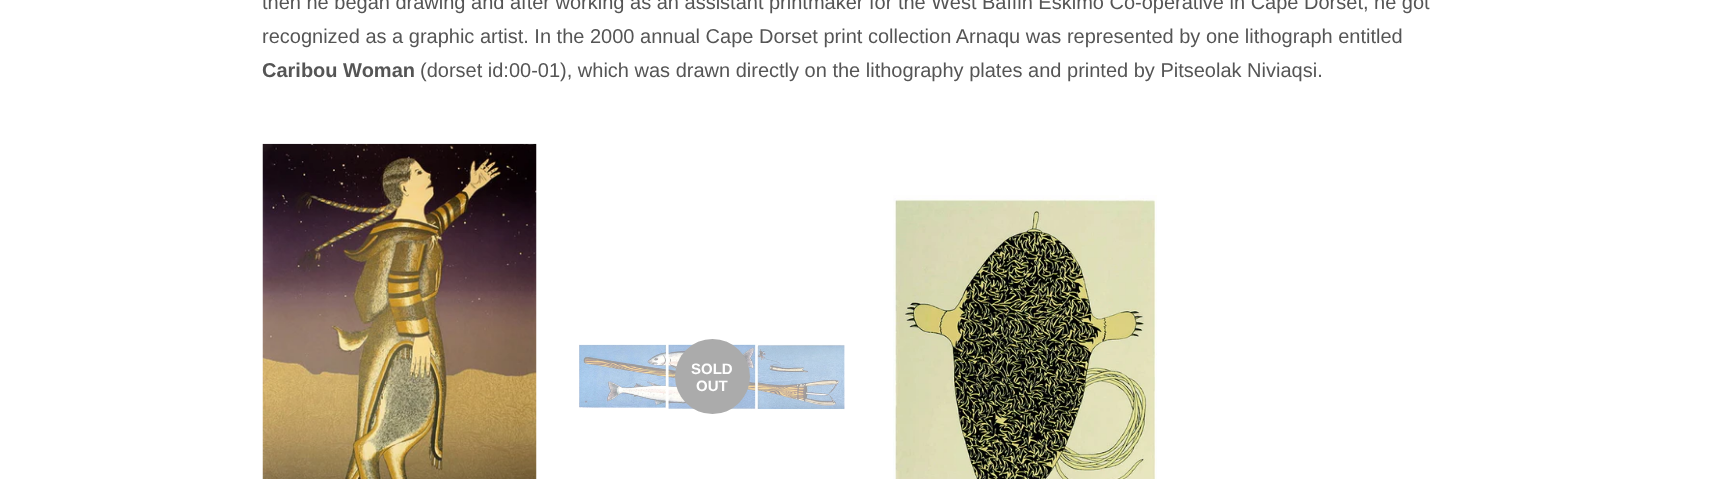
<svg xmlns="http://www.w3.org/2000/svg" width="1736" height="479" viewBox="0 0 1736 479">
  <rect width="100%" height="100%" fill="#ffffff"/>
  <text x="262" y="9" font-family="Liberation Sans" font-size="20" fill="#555555">then he began drawing and after working as an assistant printmaker for the West Baffin Eskimo Co-operative in Cape Dorset, he got</text>
  <text x="262" y="43" font-family="Liberation Sans" font-size="20" fill="#555555">recognized as a graphic artist. In the 2000 annual Cape Dorset print collection Arnaqu was represented by one lithograph entitled</text>
  <text x="262" y="77" font-family="Liberation Sans" font-size="20" font-weight="bold" fill="#555555">Caribou Woman</text>
  <text x="420" y="77" font-family="Liberation Sans" font-size="20" fill="#555555">(dorset id:00-01), which was drawn directly on the lithography plates and printed by Pitseolak Niviaqsi.</text>
  <image x="262" y="143" width="275" height="336" href="img1.png"/>
  <image x="579" y="344" width="266" height="66" href="img2.png"/>
  <circle cx="712.5" cy="376.5" r="37.5" fill="#ababab"/>
  <text x="691" y="374" font-family="Liberation Sans" font-size="15" font-weight="bold" fill="#ffffff">SOLD</text>
  <text x="696" y="391" font-family="Liberation Sans" font-size="15" font-weight="bold" fill="#ffffff">OUT</text>
  <image x="893" y="195" width="264" height="284" href="img3.png"/>
</svg>
